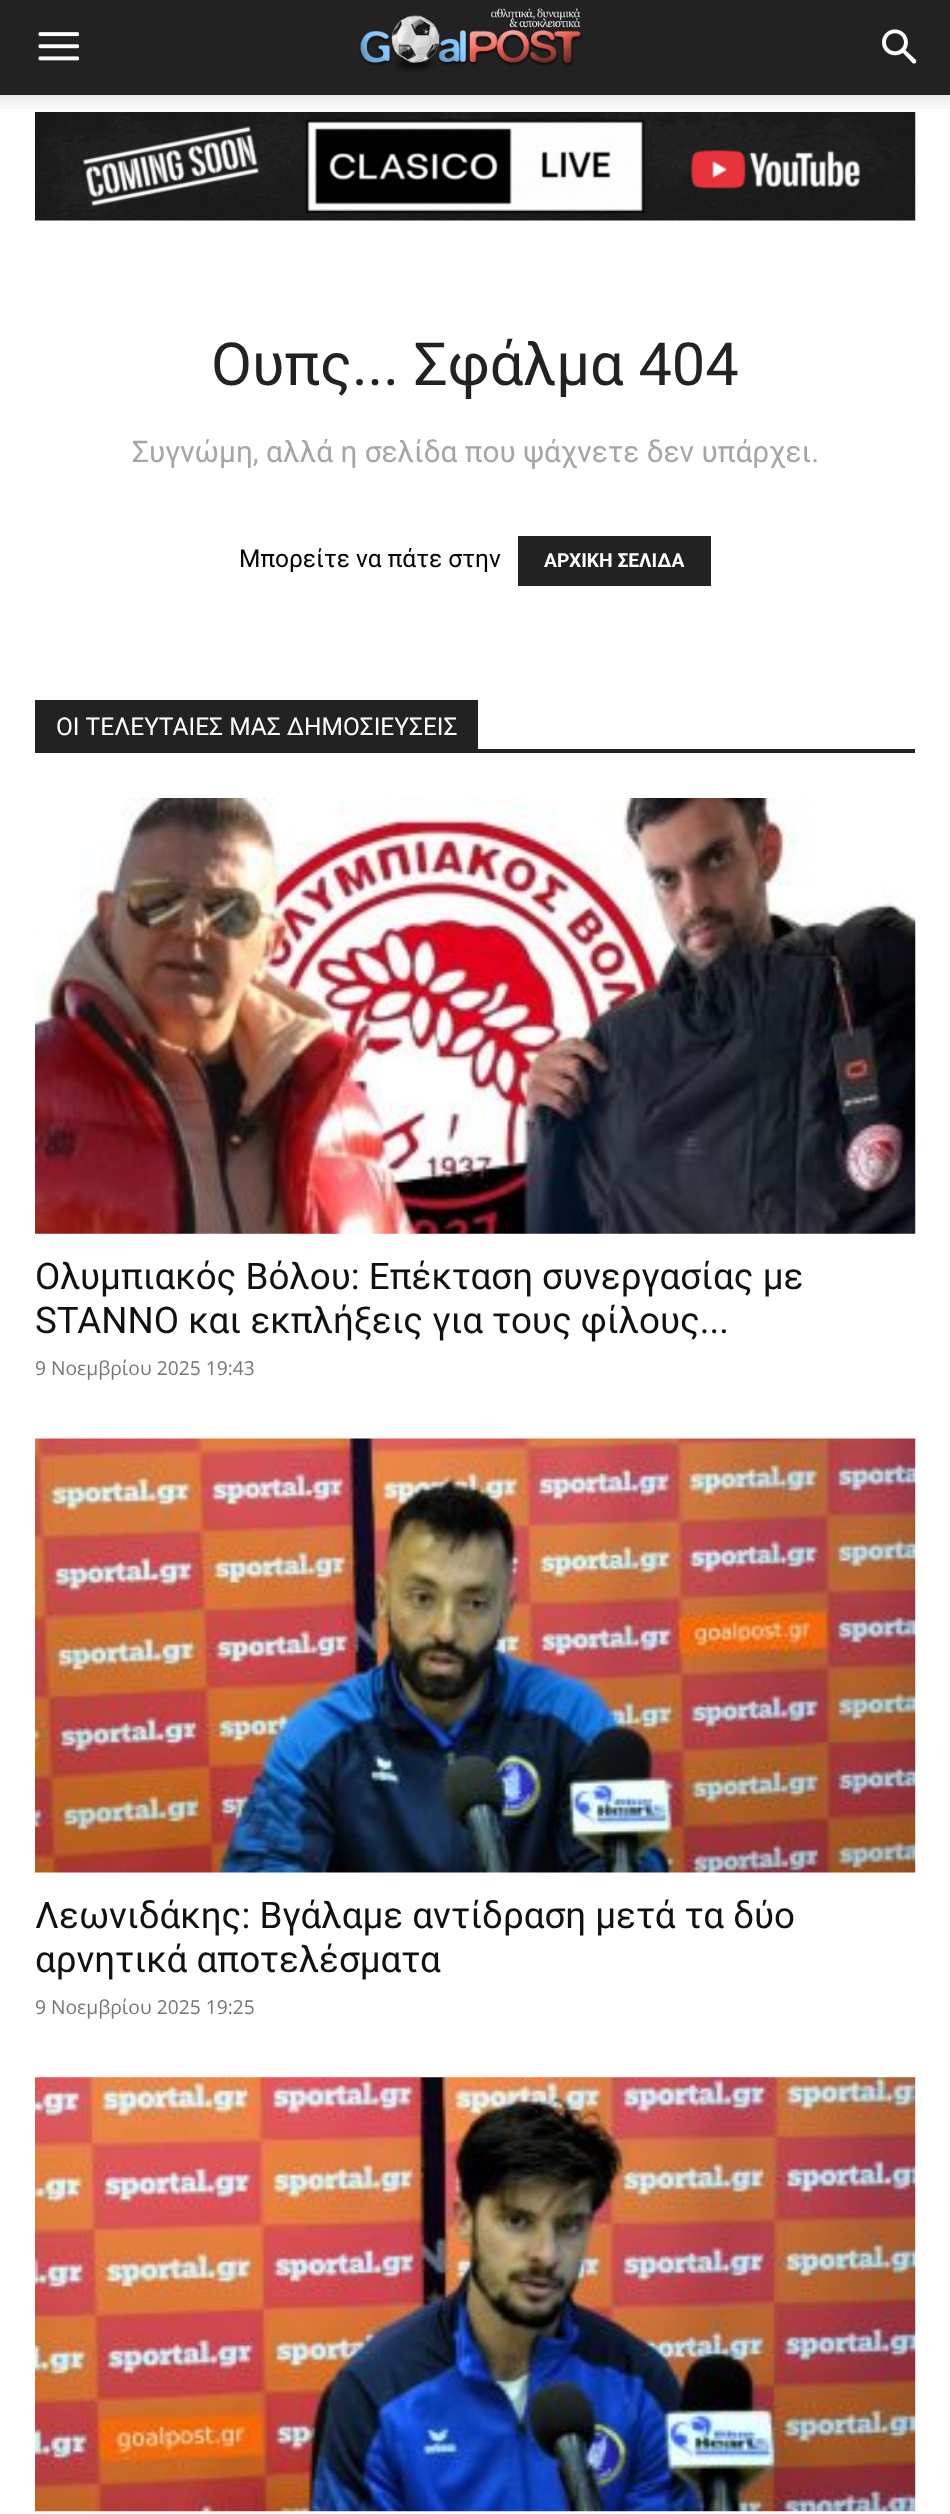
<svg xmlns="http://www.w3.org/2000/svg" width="950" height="2514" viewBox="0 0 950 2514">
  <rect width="100%" height="100%" fill="#ffffff"/>
  <rect x="0" y="0" width="950" height="95" fill="#222222"/>
  <image x="38" y="32" width="41" height="29" href="img1.png"/>
  <image x="359" y="8" width="223" height="64" href="img2.png"/>
  <image x="882" y="29" width="35" height="35" href="img3.png"/>
  <image x="0" y="95" width="950" height="14" href="img4.png"/>
  <image x="35" y="112" width="881" height="109" href="img5.png"/>
  <text x="211" y="385" font-family="Roboto" font-size="59.5" fill="#222222">Ουπς... Σφάλμα 404</text>
  <text x="132" y="462" font-family="Roboto" font-size="29.75" fill="#a6a6a6">Συγνώμη, αλλά η σελίδα που ψάχνετε δεν υπάρχει.</text>
  <text x="239" y="567" font-family="Roboto" font-size="24.5" fill="#000000">Μπορείτε να πάτε στην</text>
  <rect x="518" y="536" width="193" height="50" fill="#222222"/>
  <text x="544" y="567" font-family="Roboto" font-size="19.25" font-weight="bold" fill="#ffffff">ΑΡΧΙΚΗ ΣΕΛΙΔΑ</text>
  <rect x="35" y="749" width="880" height="4" fill="#222222"/>
  <rect x="35" y="700" width="443" height="49" fill="#222222"/>
  <text x="56" y="735" font-family="Roboto" font-size="24.5" fill="#ffffff">ΟΙ ΤΕΛΕΥΤΑΙΕΣ ΜΑΣ ΔΗΜΟΣΙΕΥΣΕΙΣ</text>
  <image x="35" y="798" width="881" height="436" href="img6.png"/>
  <text x="35" y="1289" font-family="Roboto" font-size="36.75" fill="#111111">Ολυμπιακός Βόλου: Επέκταση συνεργασίας με</text>
  <text x="35" y="1333" font-family="Roboto" font-size="36.75" fill="#111111">STANNO και εκπλήξεις για τους φίλους...</text>
  <text x="35" y="1375" font-family="Open Sans" font-size="19.25" fill="#767676">9 Νοεμβρίου 2025 19:43</text>
  <image x="35" y="1438" width="881" height="435" href="img7.png"/>
  <text x="35" y="1928" font-family="Roboto" font-size="36.75" fill="#111111">Λεωνιδάκης: Βγάλαμε αντίδραση μετά τα δύο</text>
  <text x="35" y="1972" font-family="Roboto" font-size="36.75" fill="#111111">αρνητικά αποτελέσματα</text>
  <text x="35" y="2014" font-family="Open Sans" font-size="19.25" fill="#767676">9 Νοεμβρίου 2025 19:25</text>
  <image x="35" y="2077" width="881" height="435" href="img8.png"/>
</svg>
